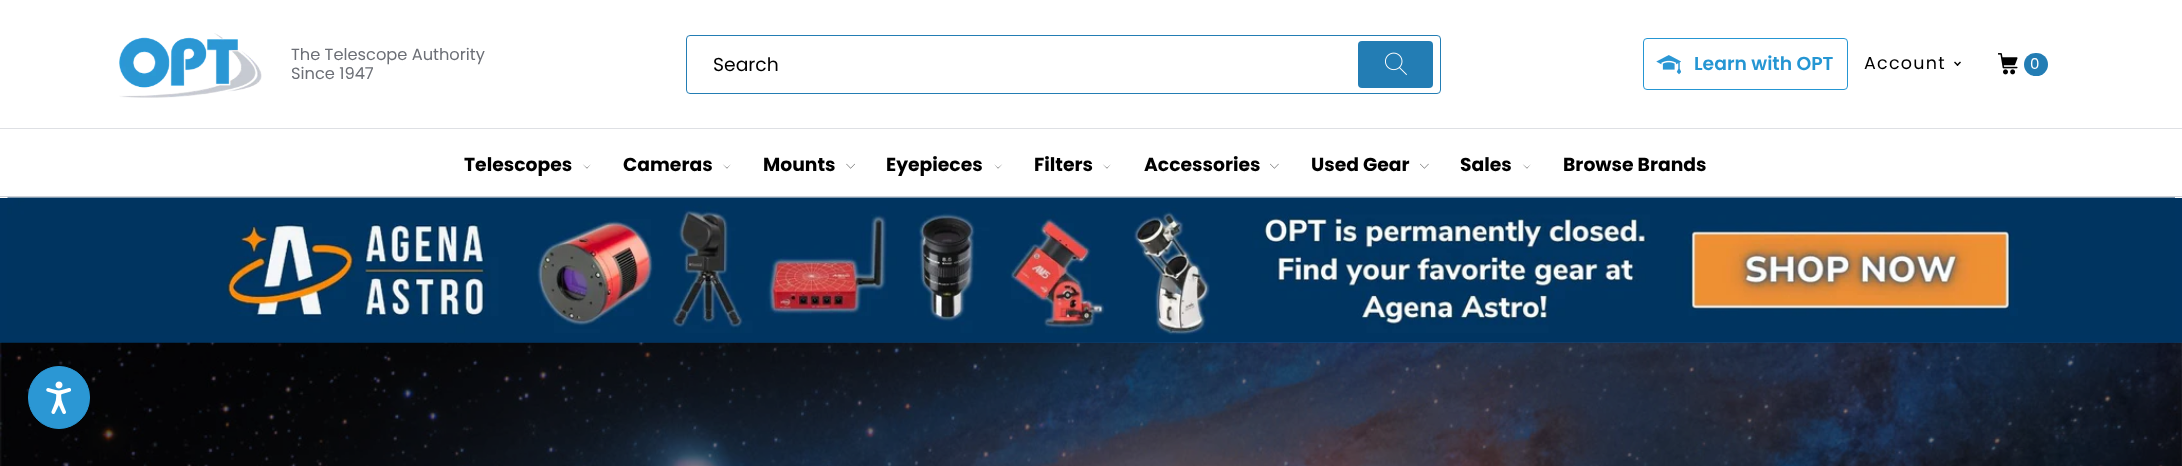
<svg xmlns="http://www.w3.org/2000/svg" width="2182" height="466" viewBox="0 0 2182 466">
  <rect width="100%" height="100%" fill="#ffffff"/>
  <rect x="0" y="128" width="2182" height="1" fill="#dee0e4"/>
  <image x="119" y="33" width="143" height="65" href="img1.png"/>
  <text x="291" y="60" font-family="Poppins" font-size="16.25" fill="#6c6f76">The Telescope Authority</text>
  <text x="291" y="79" font-family="Poppins" font-size="16.25" fill="#6c6f76">Since 1947</text>
  <rect x="686.5" y="35.5" width="754" height="58" rx="3.5" fill="none" stroke="#237db4"/>
  <text x="713" y="71" font-family="Poppins" font-size="18.75" fill="#000000">Search</text>
  <rect x="1358" y="41" width="75" height="47" rx="4" fill="#237db4"/>
  <image x="1385" y="52" width="22" height="24" href="img2.png"/>
  <rect x="1643.5" y="38.5" width="204" height="51" rx="3.5" fill="none" stroke="#2596d3"/>
  <image x="1656" y="55" width="25" height="20" href="img3.png"/>
  <text x="1694" y="70" font-family="Poppins" font-size="18.75" font-weight="600" fill="#2596d3">Learn with OPT</text>
  <text x="1864" y="69" font-family="Poppins" font-size="17.5" letter-spacing="1.25" fill="#000000">Account</text>
  <path d="M1960 61.5L1961 62.5L1957.5 66L1956.5 65Z" fill="#000000"/>
  <path d="M1955 61.5L1958.5 65L1957.5 66L1954 62.5Z" fill="#000000"/>
  <image x="1998" y="53" width="20" height="22" href="img4.png"/>
  <rect x="2024" y="53" width="24" height="23" rx="11.5" fill="#237db4"/>
  <text x="2030" y="69" font-family="Poppins" font-size="15" letter-spacing="1.25" fill="#ffffff">0</text>
  <rect x="0" y="196" width="2182" height="1" fill="#cfd2d8"/>
  <text x="464" y="171" font-family="Poppins" font-size="18.75" font-weight="bold" fill="#000000">Telescopes</text>
  <path d="M587 168.5L582.5 164L587 168L591 164Z" fill="#000000"/>
  <text x="623" y="171" font-family="Poppins" font-size="18.75" font-weight="bold" fill="#000000">Cameras</text>
  <path d="M727 168.5L722.5 164L727 168L731 164Z" fill="#000000"/>
  <text x="763" y="171" font-family="Poppins" font-size="18.75" font-weight="bold" fill="#000000">Mounts</text>
  <image x="846" y="163" width="9" height="6" href="img5.png"/>
  <text x="886" y="171" font-family="Poppins" font-size="18.75" font-weight="bold" fill="#000000">Eyepieces</text>
  <path d="M998 168.5L994 164L998 168L1002.5 164Z" fill="#000000"/>
  <text x="1034" y="171" font-family="Poppins" font-size="18.75" font-weight="bold" fill="#000000">Filters</text>
  <path d="M1107 168.5L1102.5 164L1107 168L1111 164Z" fill="#000000"/>
  <text x="1144" y="171" font-family="Poppins" font-size="18.75" font-weight="bold" fill="#000000">Accessories</text>
  <image x="1270" y="163" width="9" height="6" href="img6.png"/>
  <text x="1311" y="171" font-family="Poppins" font-size="18.75" font-weight="bold" fill="#000000">Used Gear</text>
  <image x="1420" y="163" width="9" height="6" href="img6.png"/>
  <text x="1460" y="171" font-family="Poppins" font-size="18.75" font-weight="bold" fill="#000000">Sales</text>
  <path d="M1527 168.5L1522.5 164L1527 168L1531 164Z" fill="#000000"/>
  <text x="1563" y="171" font-family="Poppins" font-size="18.75" font-weight="bold" fill="#000000">Browse Brands</text>
  <rect x="0" y="198" width="2182" height="145" fill="#003461"/>
  <image x="7" y="197" width="2168" height="138" href="img7.png"/>
  <image x="0" y="342" width="2182" height="124" href="img8.png"/>
  <rect x="28.5" y="366.5" width="61" height="62" rx="30.5" fill="#2b97d4" stroke="#2b97d4"/>
  <image x="46" y="381" width="25" height="33" href="img9.png"/>
</svg>
